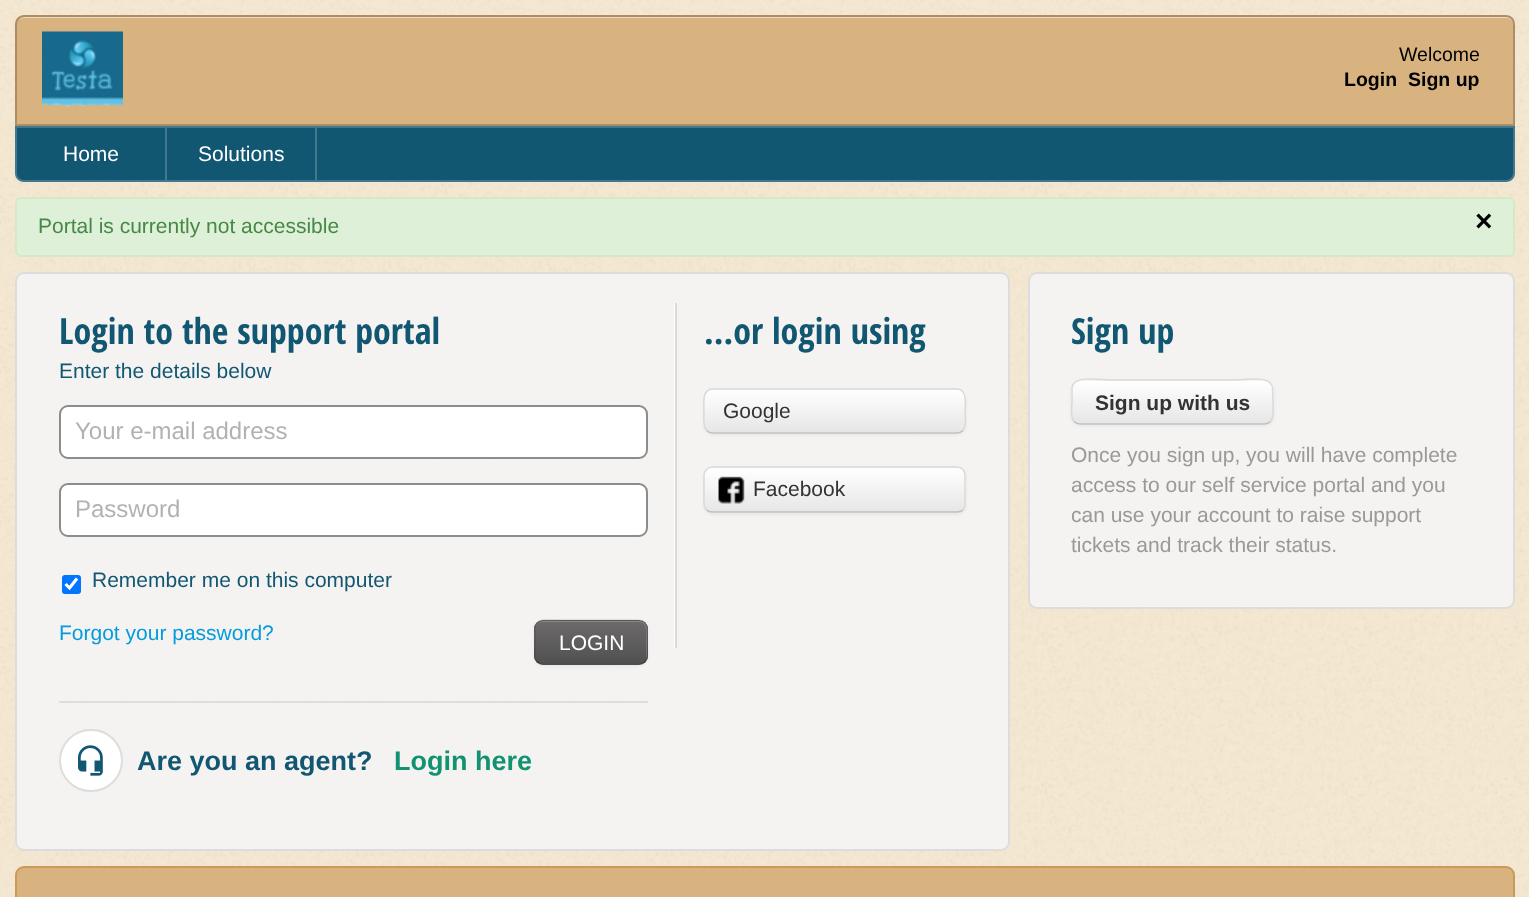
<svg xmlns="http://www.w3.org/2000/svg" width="1529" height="897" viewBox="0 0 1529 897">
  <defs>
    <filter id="blur1" x="-50%" y="-200%" width="200%" height="500%"><feGaussianBlur stdDeviation="1.5"/></filter>
    <clipPath id="clip1"><rect x="534" y="620" width="114" height="45" rx="9"/></clipPath>
    <linearGradient id="g1" gradientUnits="userSpaceOnUse" x1="591" y1="621" x2="591" y2="663"><stop offset="0" stop-color="#6c6a6a"/><stop offset="1" stop-color="#525151"/></linearGradient>
    <clipPath id="clip2"><rect x="704" y="389" width="262" height="45" rx="9"/></clipPath>
    <linearGradient id="g2" gradientUnits="userSpaceOnUse" x1="835" y1="390" x2="835" y2="432"><stop offset="0" stop-color="#ffffff"/><stop offset="1" stop-color="#e6e6e6"/></linearGradient>
    <clipPath id="clip3"><rect x="704" y="467" width="262" height="46" rx="9"/></clipPath>
    <linearGradient id="g3" gradientUnits="userSpaceOnUse" x1="835" y1="468" x2="835" y2="512"><stop offset="0" stop-color="#ffffff"/><stop offset="1" stop-color="#e6e6e6"/></linearGradient>
    <clipPath id="clip4"><rect x="1071" y="380" width="203" height="45" rx="9"/></clipPath>
    <linearGradient id="g4" gradientUnits="userSpaceOnUse" x1="1172" y1="381" x2="1172" y2="423"><stop offset="0" stop-color="#ffffff"/><stop offset="1" stop-color="#e6e6e6"/></linearGradient>
  </defs>
  <rect width="100%" height="100%" fill="#f7e9d3"/>
  <image x="0" y="0" width="1529" height="897" href="img1.png"/>
  <path d="M24 15H1506C1511 15 1515 19 1515 24V126H15V24C15 19 19 15 24 15Z" fill="#d8b27f"/>
  <path d="M24 18H1506C1510 18 1514 21 1514 26V25C1514 21 1510 17 1506 17H25C23 17 20 18 19 20C20 19 22 18 24 18Z" fill="#ecd9bf"/>
  <path d="M24 16H1506C1510.5 16 1514 19.5 1514 24V125H16V24C16 19.5 19.5 16 24 16Z" fill="none" stroke="#000000" stroke-opacity="0.2" stroke-width="2"/>
  <image x="42" y="31" width="81" height="76" href="img2.png"/>
  <text x="1399" y="61" font-family="Liberation Sans" font-size="19.5" fill="#000000">Welcome</text>
  <text x="1344" y="86" font-family="Liberation Sans" font-size="19.5" font-weight="bold" fill="#000000">Login</text>
  <text x="1408" y="86" font-family="Liberation Sans" font-size="19.5" font-weight="bold" fill="#000000">Sign up</text>
  <path d="M15 126H1515V173C1515 178 1511 182 1506 182H24C19 182 15 178 15 173Z" fill="#125772"/>
  <path d="M16 127H1514V173C1514 177.5 1510.5 181 1506 181H24C19.5 181 16 177.5 16 173Z" fill="none" stroke="#ffffff" stroke-opacity="0.2" stroke-width="2"/>
  <rect x="165" y="128" width="2" height="52" fill="#41798e"/>
  <text x="63" y="161" font-family="Liberation Sans" font-size="21" fill="#ffffff">Home</text>
  <rect x="315" y="128" width="2" height="52" fill="#41798e"/>
  <text x="198" y="161" font-family="Liberation Sans" font-size="21" fill="#ffffff">Solutions</text>
  <rect x="16" y="198" width="1498" height="58" rx="5" fill="#dff0d8" stroke="#d6e9c6" stroke-width="2"/>
  <text x="38" y="233" font-family="Liberation Sans" font-size="21" fill="#468847">Portal is currently not accessible</text>
  <text x="1475" y="231" font-family="Liberation Sans" font-size="30" font-weight="bold" fill="#000000">×</text>
  <rect x="15" y="272" width="995" height="579" rx="9" fill="#f4f4f4" fill-opacity="0.9"/>
  <path d="M24 274H1000C1005 274 1008 278 1008 282V281C1008 277 1004 273 1000 273H25C22 273 20 275 18 277C20 275 22 274 24 274Z" fill="#fcfbfb"/>
  <rect x="16" y="273" width="993" height="577" rx="8" fill="none" stroke="#dcdcdc" stroke-width="2"/>
  <text x="59" y="344" font-family="Open Sans Condensed" font-size="36" font-weight="bold" fill="#125772">Login to the support portal</text>
  <text x="59" y="378" font-family="Liberation Sans" font-size="21" fill="#125772">Enter the details below</text>
  <rect x="60" y="406" width="587" height="52" rx="8" fill="#ffffff" stroke="#8c8c8c" stroke-width="2"/>
  <text x="75" y="439" font-family="Liberation Sans" font-size="24" fill="#b2b2b2">Your e-mail address</text>
  <rect x="60" y="484" width="587" height="52" rx="8" fill="#ffffff" stroke="#8c8c8c" stroke-width="2"/>
  <text x="75" y="517" font-family="Liberation Sans" font-size="24" fill="#b2b2b2">Password</text>
  <rect x="62" y="575" width="19" height="19" rx="3" fill="#0075ff"/>
  <path d="M65.5 584L69.5 588L77 578.5" fill="none" stroke="#ffffff" stroke-width="3.1"/>
  <text x="92" y="587" font-family="Liberation Sans" font-size="21" fill="#125772">Remember me on this computer</text>
  <text x="59" y="640" font-family="Liberation Sans" font-size="21" fill="#049cdb">Forgot your password?</text>
  <rect x="534" y="621" width="114" height="45" rx="9" fill="#000000" fill-opacity="0.05" filter="url(#blur1)"/>
  <rect x="534" y="620" width="114" height="45" rx="9" fill="#626060"/>
  <g clip-path="url(#clip1)">
    <rect x="534" y="621" width="114" height="42" fill="url(#g1)"/>
  </g>
  <path d="M543 622H639C648 622 646 634 646 639V660C646 658 647 657 647 655V629C647 625 643 621 639 621H544C540 621 536 625 536 629V630C536 626 539 622 543 622Z" fill="#ffffff" fill-opacity="0.2"/>
  <path d="M645 661.5C643.5 663 641 664 639 664H543C541 664 538.5 663 537 661.5" fill="none" stroke="#000000" stroke-opacity="0.25" stroke-width="1.5"/>
  <path d="M537 661.5C534.5 658.5 535 655 535 651V627C537 616.5 553 620 559 620H623C648 620 647 618 647 642C647 647 649 657 645 661.5" fill="none" stroke="#000000" stroke-opacity="0.1" stroke-width="1.5"/>
  <text x="559" y="650" font-family="Liberation Sans" font-size="21" fill="#ffffff">LOGIN</text>
  <rect x="59" y="701" width="589" height="2" fill="#dddddd"/>
  <rect x="60" y="730" width="62" height="61" rx="30.5" fill="#ffffff" stroke="#dddddd" stroke-width="2"/>
  <image x="78" y="745" width="25" height="31" href="img3.png"/>
  <text x="137" y="770" font-family="Liberation Sans" font-size="27" font-weight="bold" fill="#125772">Are you an agent?</text>
  <text x="394" y="770" font-family="Liberation Sans" font-size="27" font-weight="bold" fill="#139272">Login here</text>
  <rect x="674" y="303" width="1" height="345" fill="#ffffff"/>
  <rect x="675" y="303" width="2" height="345" fill="#dadada"/>
  <text x="704" y="344" font-family="Open Sans Condensed" font-size="36" font-weight="bold" fill="#125772">...or login using</text>
  <rect x="704" y="390" width="262" height="45" rx="9" fill="#000000" fill-opacity="0.05" filter="url(#blur1)"/>
  <rect x="704" y="389" width="262" height="45" rx="9" fill="#f5f5f5"/>
  <g clip-path="url(#clip2)">
    <rect x="704" y="390" width="262" height="42" fill="url(#g2)"/>
  </g>
  <path d="M712 392H957C966 392 964 402 964 408V428C964 427 965 426 965 424V398C965 394 961 390 957 390H713C709 390 705 394 705 398V399C705 395 708 392 712 392Z" fill="#ffffff" fill-opacity="0.2"/>
  <path d="M963 430.5C961.5 432 959 433 957 433H712.5C710.5 433 708 432 706.5 430.5" fill="none" stroke="#bfbfbf" stroke-width="1.5"/>
  <path d="M706.5 430.5C702.5 426 704 416 704 411C704 404.5 701.5 389.5 712.5 389H957C968 389.5 965 404.5 965 411C965 416 967 426 963 430.5" fill="none" stroke="#d9d9d9" stroke-width="1.5"/>
  <text x="723" y="418" font-family="Liberation Sans" font-size="21" fill="#333333">Google</text>
  <rect x="704" y="468" width="262" height="47" rx="9" fill="#000000" fill-opacity="0.05" filter="url(#blur1)"/>
  <rect x="704" y="467" width="262" height="46" rx="9" fill="#f5f5f5"/>
  <g clip-path="url(#clip3)">
    <rect x="704" y="468" width="262" height="44" fill="url(#g3)"/>
  </g>
  <path d="M712 470H957C961 470 964 473 964 477V506V509C964 507 965 506 965 504V476C965 472 961 468 957 468H713C709 468 705 472 705 476V477C705 473 708 470 712 470Z" fill="#ffffff" fill-opacity="0.2"/>
  <path d="M963 510C961.5 511.5 959 512 957 512H712.5C710.5 512 708 511.5 706.5 510" fill="none" stroke="#bfbfbf" stroke-width="1.5"/>
  <path d="M706.5 510C705 508.5 704 506 704 504V475.5C704 473.5 705 471 706.5 469.5C708 468 710.5 467 712.5 467H957C959 467 961.5 468 963 469.5C964.5 471 965 473.5 965 475.5V504C965 506 964.5 508.5 963 510" fill="none" stroke="#d9d9d9" stroke-width="1.5"/>
  <image x="718" y="476" width="27" height="28" href="img4.png"/>
  <text x="753" y="496" font-family="Liberation Sans" font-size="21" fill="#333333">Facebook</text>
  <rect x="1029" y="273" width="485" height="335" rx="8" fill="#f4f4f4" fill-opacity="0.9" stroke="#dcdcdc" stroke-width="2"/>
  <text x="1071" y="344" font-family="Open Sans Condensed" font-size="36" font-weight="bold" fill="#125772">Sign up</text>
  <rect x="1071" y="381" width="203" height="45" rx="9" fill="#000000" fill-opacity="0.05" filter="url(#blur1)"/>
  <rect x="1071" y="380" width="203" height="45" rx="9" fill="#f5f5f5"/>
  <g clip-path="url(#clip4)">
    <rect x="1071" y="381" width="203" height="42" fill="url(#g4)"/>
  </g>
  <path d="M1270.5 421.5C1269 423 1266.5 424 1264.5 424H1080C1078 424 1075.5 423 1074 421.5" fill="none" stroke="#bfbfbf" stroke-width="1.5"/>
  <path d="M1074 421.5C1070 417 1072 407 1072 402V387C1074.5 375 1099 380 1111 380H1234C1245.5 380 1270 375 1272.5 387L1273 402C1273 407 1274.5 417 1270.5 421.5" fill="none" stroke="#d9d9d9" stroke-width="1.5"/>
  <text x="1095" y="410" font-family="Liberation Sans" font-size="21" font-weight="bold" fill="#333333">Sign up with us</text>
  <text x="1071" y="462" font-family="Liberation Sans" font-size="21" fill="#999999">Once you sign up, you will have complete</text>
  <text x="1071" y="492" font-family="Liberation Sans" font-size="21" fill="#999999">access to our self service portal and you</text>
  <text x="1071" y="522" font-family="Liberation Sans" font-size="21" fill="#999999">can use your account to raise support</text>
  <text x="1071" y="552" font-family="Liberation Sans" font-size="21" fill="#999999">tickets and track their status.</text>
  <rect x="16" y="867" width="1498" height="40" rx="8" fill="#d8b27f" stroke="#cc9a58" stroke-width="2"/>
</svg>
